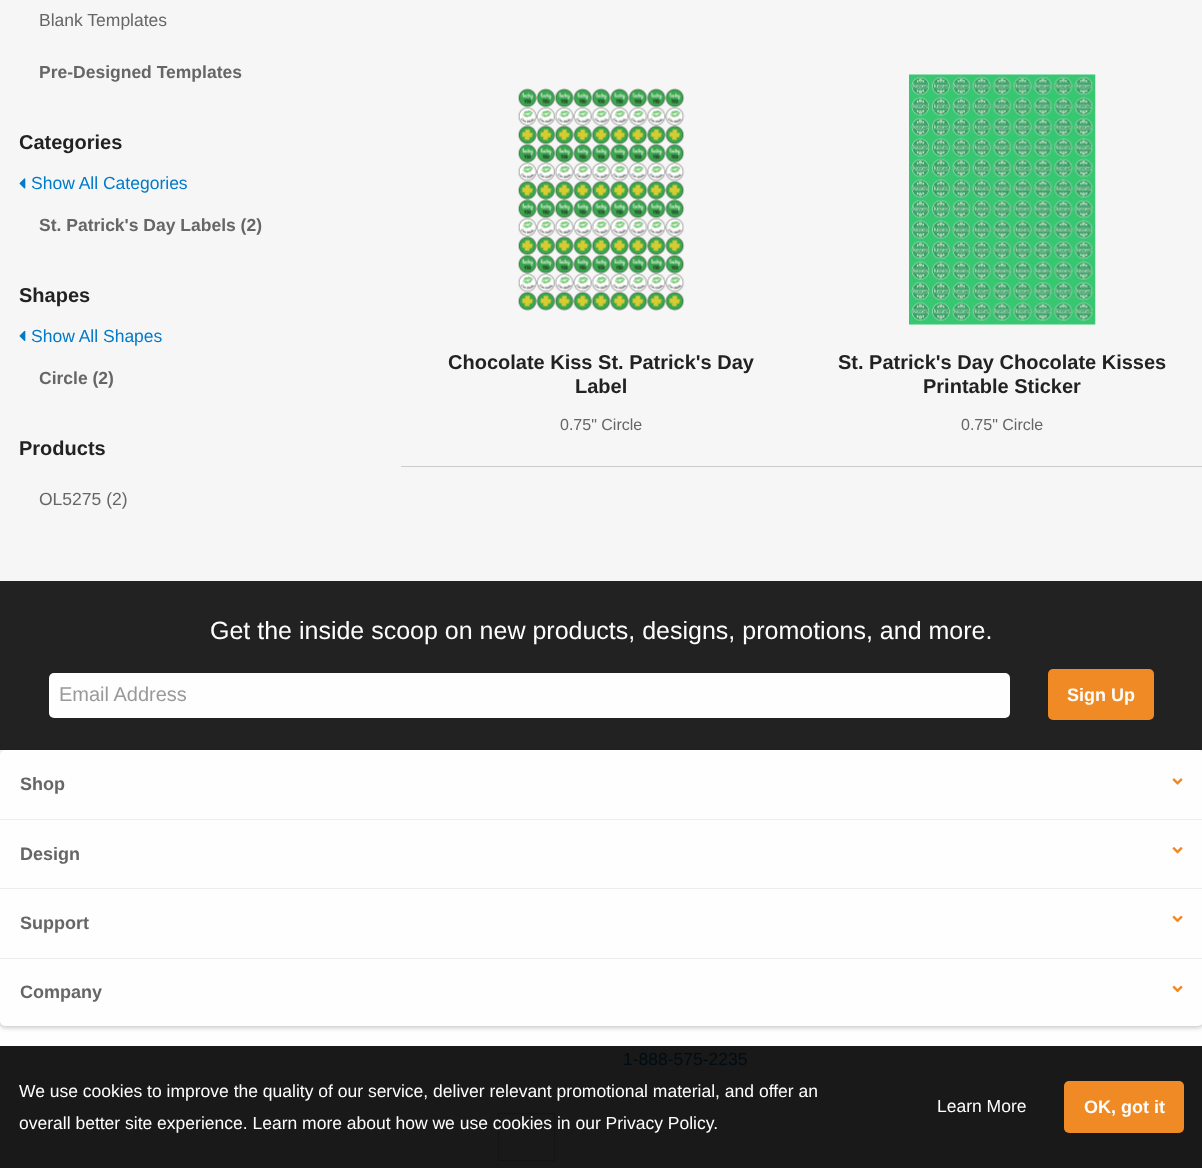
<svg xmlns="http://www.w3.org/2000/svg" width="1202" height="1168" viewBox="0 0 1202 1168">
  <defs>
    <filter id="blur1" x="-50%" y="-200%" width="200%" height="500%"><feGaussianBlur stdDeviation="2"/></filter>
  </defs>
  <rect width="100%" height="100%" fill="#f6f6f6"/>
  <text x="39" y="26" font-family="Liberation Sans" font-size="17.5" fill="#666666">Blank Templates</text>
  <text x="39" y="78" font-family="Liberation Sans" font-size="17.5" font-weight="bold" fill="#666666">Pre-Designed Templates</text>
  <text x="19" y="149" font-family="Liberation Sans" font-size="20" font-weight="bold" fill="#222222">Categories</text>
  <image x="19" y="178" width="7" height="11" href="img1.png"/>
  <text x="31" y="189" font-family="Liberation Sans" font-size="17.5" fill="#007ac9">Show All Categories</text>
  <text x="39" y="231" font-family="Liberation Sans" font-size="17.5" font-weight="bold" fill="#666666">St. Patrick's Day Labels (2)</text>
  <text x="19" y="302" font-family="Liberation Sans" font-size="20" font-weight="bold" fill="#222222">Shapes</text>
  <image x="19" y="330" width="7" height="11" href="img2.png"/>
  <text x="31" y="342" font-family="Liberation Sans" font-size="17.5" fill="#007ac9">Show All Shapes</text>
  <text x="39" y="384" font-family="Liberation Sans" font-size="17.5" font-weight="bold" fill="#666666">Circle (2)</text>
  <text x="19" y="455" font-family="Liberation Sans" font-size="20" font-weight="bold" fill="#222222">Products</text>
  <text x="39" y="505" font-family="Liberation Sans" font-size="17.5" fill="#666666">OL5275 (2)</text>
  <rect x="401" y="466" width="801" height="1" fill="#cccccc"/>
  <image x="518" y="88" width="167" height="223" href="img3.png"/>
  <text x="448" y="369" font-family="Liberation Sans" font-size="20" font-weight="bold" fill="#222222">Chocolate Kiss St. Patrick's Day</text>
  <text x="575" y="393" font-family="Liberation Sans" font-size="20" font-weight="bold" fill="#222222">Label</text>
  <text x="560" y="430" font-family="Liberation Sans" font-size="16" fill="#666666">0.75" Circle</text>
  <image x="909" y="74" width="187" height="251" href="img4.png"/>
  <text x="838" y="369" font-family="Liberation Sans" font-size="20" font-weight="bold" fill="#222222">St. Patrick's Day Chocolate Kisses</text>
  <text x="923" y="393" font-family="Liberation Sans" font-size="20" font-weight="bold" fill="#222222">Printable Sticker</text>
  <text x="961" y="430" font-family="Liberation Sans" font-size="16" fill="#666666">0.75" Circle</text>
  <rect x="0" y="581" width="1202" height="169" fill="#222222"/>
  <text x="210" y="639" font-family="Liberation Sans" font-size="25" fill="#fefefe">Get the inside scoop on new products, designs, promotions, and more.</text>
  <rect x="49" y="673" width="961" height="45" rx="5" fill="#fefefe"/>
  <text x="59" y="701" font-family="Liberation Sans" font-size="20" fill="#999999">Email Address</text>
  <rect x="1048" y="669" width="106" height="51" rx="5" fill="#f08a24"/>
  <text x="1067" y="701" font-family="Liberation Sans" font-size="18" font-weight="bold" fill="#fefefe">Sign Up</text>
  <rect x="0" y="1026" width="1202" height="20" fill="#fefefe"/>
  <rect x="0" y="751" width="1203" height="277" rx="5" fill="#000000" fill-opacity="0.2" filter="url(#blur1)"/>
  <rect x="0" y="750" width="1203" height="276" rx="5" fill="#fefefe"/>
  <text x="20" y="790" font-family="Liberation Sans" font-size="18" font-weight="bold" fill="#666666">Shop</text>
  <image x="1172" y="778" width="11" height="7" href="img5.png"/>
  <rect x="0" y="819" width="1202" height="1" fill="#eeeeee"/>
  <text x="20" y="860" font-family="Liberation Sans" font-size="18" font-weight="bold" fill="#666666">Design</text>
  <image x="1172" y="847" width="11" height="7" href="img6.png"/>
  <rect x="0" y="888" width="1202" height="1" fill="#eeeeee"/>
  <text x="20" y="929" font-family="Liberation Sans" font-size="18" font-weight="bold" fill="#666666">Support</text>
  <image x="1172" y="915" width="11" height="8" href="img7.png"/>
  <rect x="0" y="958" width="1202" height="1" fill="#eeeeee"/>
  <text x="20" y="998" font-family="Liberation Sans" font-size="18" font-weight="bold" fill="#666666">Company</text>
  <image x="1172" y="985" width="11" height="8" href="img7.png"/>
  <rect x="0" y="1046" width="1202" height="122" fill="#191919"/>
  <text x="623" y="1065" font-family="Liberation Sans" font-size="17.5" fill="#000c14">1-888-575-2235</text>
  <rect x="498.5" y="1113.5" width="56" height="47" fill="none" stroke="#141414"/>
  <text x="19" y="1097" font-family="Liberation Sans" font-size="17.5" fill="#fefefe">We use cookies to improve the quality of our service, deliver relevant promotional material, and offer an</text>
  <text x="19" y="1129" font-family="Liberation Sans" font-size="17.5" fill="#fefefe">overall better site experience. Learn more about how we use cookies in our Privacy Policy.</text>
  <text x="937" y="1112" font-family="Liberation Sans" font-size="17.5" fill="#fefefe">Learn More</text>
  <rect x="1064" y="1081" width="120" height="52" rx="5" fill="#f08a24"/>
  <text x="1084" y="1113" font-family="Liberation Sans" font-size="18" font-weight="bold" fill="#fefefe">OK, got it</text>
</svg>
